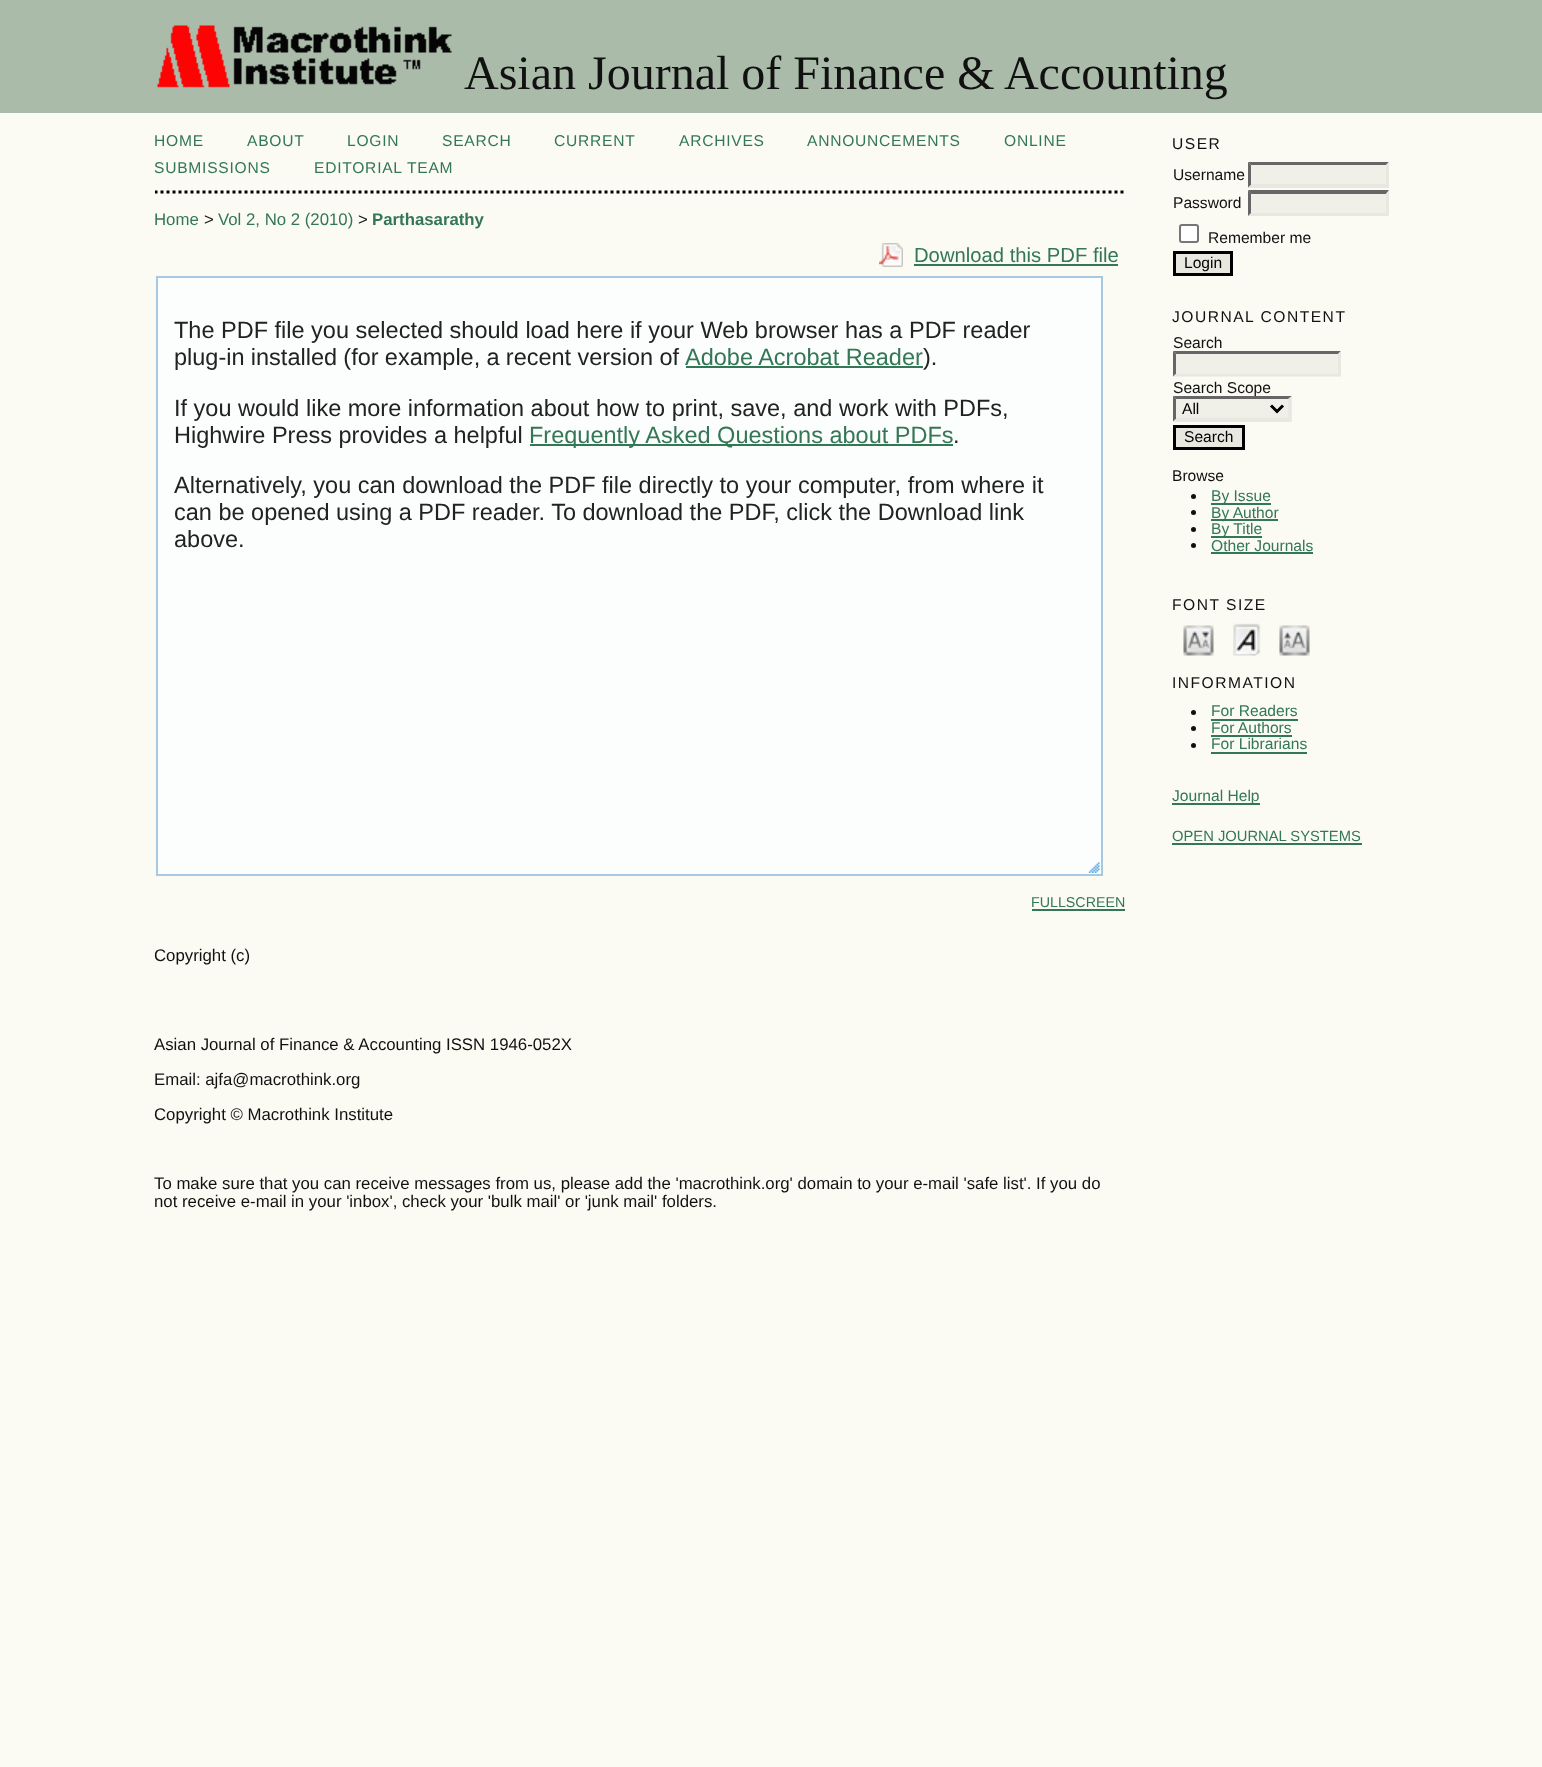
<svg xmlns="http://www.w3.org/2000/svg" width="1542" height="1767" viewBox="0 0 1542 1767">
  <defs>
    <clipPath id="clip1"><rect x="155" y="113" width="970" height="1197"/></clipPath>
  </defs>
  <rect width="100%" height="100%" fill="#fbfbf3"/>
  <rect x="0" y="0" width="1542" height="113" fill="#aabbaa"/>
  <image x="157" y="25" width="295" height="63" href="img1.png"/>
  <text x="464" y="89" font-family="Liberation Serif" font-size="48" fill="#111111">Asian Journal of Finance &amp; Accounting</text>
  <g clip-path="url(#clip1)">
    <path d="M154.5 192H1125" fill="none" stroke="#000000" stroke-width="3" stroke-dasharray="3 3"/>
  </g>
  <text x="154" y="146" font-family="Liberation Sans" font-size="15.6" letter-spacing="0.75" fill="#337755">HOME</text>
  <text x="247" y="146" font-family="Liberation Sans" font-size="15.6" letter-spacing="0.75" fill="#337755">ABOUT</text>
  <text x="347" y="146" font-family="Liberation Sans" font-size="15.6" letter-spacing="0.75" fill="#337755">LOGIN</text>
  <text x="442" y="146" font-family="Liberation Sans" font-size="15.6" letter-spacing="0.75" fill="#337755">SEARCH</text>
  <text x="554" y="146" font-family="Liberation Sans" font-size="15.6" letter-spacing="0.75" fill="#337755">CURRENT</text>
  <text x="679" y="146" font-family="Liberation Sans" font-size="15.6" letter-spacing="0.75" fill="#337755">ARCHIVES</text>
  <text x="807" y="146" font-family="Liberation Sans" font-size="15.6" letter-spacing="0.75" fill="#337755">ANNOUNCEMENTS</text>
  <text x="1004" y="146" font-family="Liberation Sans" font-size="15.6" letter-spacing="0.75" fill="#337755">ONLINE</text>
  <text x="154" y="173" font-family="Liberation Sans" font-size="15.6" letter-spacing="0.75" fill="#337755">SUBMISSIONS</text>
  <text x="314" y="173" font-family="Liberation Sans" font-size="15.6" letter-spacing="0.75" fill="#337755">EDITORIAL TEAM</text>
  <text x="154" y="225" font-family="Liberation Sans" font-size="16.8" fill="#337755">Home</text>
  <text x="204" y="225" font-family="Liberation Sans" font-size="16.8" fill="#111111">&gt;</text>
  <text x="218" y="225" font-family="Liberation Sans" font-size="16.8" fill="#337755">Vol 2, No 2 (2010)</text>
  <text x="358" y="225" font-family="Liberation Sans" font-size="16.8" fill="#111111">&gt;</text>
  <text x="372" y="225" font-family="Liberation Sans" font-size="16.8" font-weight="bold" fill="#337755">Parthasarathy</text>
  <image x="879" y="243" width="24" height="24" href="img2.png"/>
  <text x="914" y="262" font-family="Liberation Sans" font-size="20.25" fill="#337755">Download this PDF file</text>
  <rect x="914" y="264" width="204" height="2" fill="#337755"/>
  <rect x="157" y="277" width="945" height="598" fill="#fcfdfd" stroke="#a6c9e2" stroke-width="2"/>
  <text x="174" y="338" font-family="Liberation Sans" font-size="23.5" fill="#222222">The PDF file you selected should load here if your Web browser has a PDF reader</text>
  <text x="174" y="365" word-spacing="-0.25" font-family="Liberation Sans" font-size="23.5" fill="#222222">plug-in installed (for example, a recent version of</text>
  <text x="685" y="365" font-family="Liberation Sans" font-size="23.5" fill="#337755">Adobe Acrobat Reader</text>
  <rect x="686" y="366" width="237" height="2" fill="#337755"/>
  <text x="923" y="365" font-family="Liberation Sans" font-size="23.5" fill="#222222">).</text>
  <text x="174" y="416" font-family="Liberation Sans" font-size="23.5" fill="#222222">If you would like more information about how to print, save, and work with PDFs,</text>
  <text x="174" y="443" font-family="Liberation Sans" font-size="23.5" fill="#222222">Highwire Press provides a helpful</text>
  <rect x="530" y="444" width="423" height="2" fill="#337755"/>
  <text x="529" y="443" font-family="Liberation Sans" font-size="23.5" fill="#337755">Frequently Asked Questions about PDFs</text>
  <text x="953" y="443" font-family="Liberation Sans" font-size="23.5" fill="#222222">.</text>
  <text x="174" y="493" font-family="Liberation Sans" font-size="23.5" fill="#222222">Alternatively, you can download the PDF file directly to your computer, from where it</text>
  <text x="174" y="520" font-family="Liberation Sans" font-size="23.5" fill="#222222">can be opened using a PDF reader. To download the PDF, click the Download link</text>
  <text x="174" y="547" font-family="Liberation Sans" font-size="23.5" fill="#222222">above.</text>
  <image x="1088" y="862" width="12" height="11" href="img3.png"/>
  <text x="1031" y="907" font-family="Liberation Sans" font-size="14.25" fill="#337755">FULLSCREEN</text>
  <rect x="1032" y="909" width="93" height="2" fill="#337755"/>
  <text x="154" y="961" font-family="Liberation Sans" font-size="16.8" fill="#111111">Copyright (c)</text>
  <text x="154" y="1050" font-family="Liberation Sans" font-size="16.8" fill="#111111">Asian Journal of Finance &amp; Accounting ISSN 1946-052X</text>
  <text x="154" y="1085" font-family="Liberation Sans" font-size="16.8" fill="#111111">Email: ajfa@macrothink.org</text>
  <text x="154" y="1120" font-family="Liberation Sans" font-size="16.8" fill="#111111">Copyright © Macrothink Institute</text>
  <text x="154" y="1189" font-family="Liberation Sans" font-size="16.8" fill="#111111">To make sure that you can receive messages from us, please add the 'macrothink.org' domain to your e-mail 'safe list'. If you do</text>
  <text x="154" y="1207" font-family="Liberation Sans" font-size="16.8" fill="#111111">not receive e-mail in your 'inbox', check your 'bulk mail' or 'junk mail' folders.</text>
  <text x="1172" y="149" font-family="Liberation Sans" font-size="15.6" letter-spacing="1.5" fill="#111111">USER</text>
  <text x="1173" y="180" font-family="Liberation Sans" font-size="15.6" fill="#111111">Username</text>
  <rect x="1248" y="162" width="141" height="26" fill="#f0f0e8"/>
  <path d="M1248 162H1389L1386 165H1251Z" fill="#666666"/>
  <path d="M1389 162V187.5L1386 184.5V165Z" fill="#e8e8e1"/>
  <path d="M1389 188H1248L1251 184H1386Z" fill="#e8e8e1"/>
  <path d="M1248 187.5V162L1251 165V184.5Z" fill="#666666"/>
  <text x="1173" y="208" font-family="Liberation Sans" font-size="15.6" fill="#111111">Password</text>
  <rect x="1248" y="191" width="141" height="25" fill="#f0f0e8"/>
  <path d="M1248 190H1389L1386 194H1251Z" fill="#666666"/>
  <path d="M1389 190.5V216L1386 213V193.5Z" fill="#e8e8e1"/>
  <path d="M1389 216H1248L1251 213H1386Z" fill="#e8e8e1"/>
  <path d="M1248 216V190.5L1251 193.5V213Z" fill="#666666"/>
  <rect x="1180" y="225" width="18" height="17" rx="2" fill="#ffffff" stroke="#767676" stroke-width="2"/>
  <text x="1208" y="243" font-family="Liberation Sans" font-size="15.6" fill="#111111">Remember me</text>
  <rect x="1174.5" y="252.5" width="57" height="22" fill="#e8e8e1" stroke="#000000" stroke-width="3"/>
  <text x="1184" y="268" font-family="Liberation Sans" font-size="15.6" fill="#000000">Login</text>
  <text x="1172" y="322" font-family="Liberation Sans" font-size="15.6" letter-spacing="1.5" fill="#111111">JOURNAL CONTENT</text>
  <text x="1173" y="348" font-family="Liberation Sans" font-size="15.6" fill="#111111">Search</text>
  <rect x="1173" y="351" width="168" height="26" fill="#f0f0e8"/>
  <path d="M1173 351H1341L1338 354H1176Z" fill="#666666"/>
  <path d="M1341 351V376.5L1338 373.5V354Z" fill="#e8e8e1"/>
  <path d="M1341 376H1173L1176 374H1338Z" fill="#e8e8e1"/>
  <path d="M1173 376.5V351L1176 354V373.5Z" fill="#666666"/>
  <text x="1173" y="393" font-family="Liberation Sans" font-size="15.6" fill="#111111">Search Scope</text>
  <rect x="1173" y="396" width="119" height="26" fill="#f0f0e8"/>
  <path d="M1173 396H1292L1288 399H1176Z" fill="#666666"/>
  <path d="M1291.5 396V421.5L1288.5 418.5V399Z" fill="#e8e8e1"/>
  <path d="M1292 422H1173L1176 418H1288Z" fill="#e8e8e1"/>
  <path d="M1173 421.5V396L1176 399V418.5Z" fill="#666666"/>
  <path d="M1271 405.5L1277 411.5L1283 405.5" fill="none" stroke="#000000" stroke-width="3"/>
  <text x="1182" y="414" font-family="Liberation Sans" font-size="15.6" fill="#000000">All</text>
  <rect x="1174.5" y="426.5" width="69" height="22" fill="#e8e8e1" stroke="#000000" stroke-width="3"/>
  <text x="1184" y="442" font-family="Liberation Sans" font-size="15.6" fill="#000000">Search</text>
  <text x="1172" y="481" font-family="Liberation Sans" font-size="15.6" fill="#111111">Browse</text>
  <circle cx="1193.5" cy="496.5" r="2.5" fill="#111111"/>
  <rect x="1211" y="503" width="60" height="2" fill="#337755"/>
  <text x="1211" y="501" font-family="Liberation Sans" font-size="15.6" fill="#337755">By Issue</text>
  <circle cx="1193.5" cy="512.5" r="2.5" fill="#111111"/>
  <rect x="1211" y="519" width="67" height="2" fill="#337755"/>
  <text x="1211" y="518" font-family="Liberation Sans" font-size="15.6" fill="#337755">By Author</text>
  <circle cx="1193.5" cy="529.5" r="2.5" fill="#111111"/>
  <rect x="1211" y="536" width="51" height="2" fill="#337755"/>
  <text x="1211" y="534" font-family="Liberation Sans" font-size="15.6" fill="#337755">By Title</text>
  <circle cx="1193.5" cy="545.5" r="2.5" fill="#111111"/>
  <text x="1211" y="551" font-family="Liberation Sans" font-size="15.6" fill="#337755">Other Journals</text>
  <rect x="1211" y="552" width="102" height="2" fill="#337755"/>
  <text x="1172" y="610" font-family="Liberation Sans" font-size="15.6" letter-spacing="1.5" fill="#111111">FONT SIZE</text>
  <image x="1183" y="625" width="31" height="31" href="img4.png"/>
  <image x="1233" y="623" width="28" height="33" href="img5.png"/>
  <image x="1279" y="625" width="31" height="31" href="img6.png"/>
  <text x="1172" y="688" font-family="Liberation Sans" font-size="15.6" letter-spacing="1.5" fill="#111111">INFORMATION</text>
  <circle cx="1193.5" cy="712.5" r="2.5" fill="#111111"/>
  <text x="1211" y="716" font-family="Liberation Sans" font-size="15.6" fill="#337755">For Readers</text>
  <rect x="1211" y="719" width="87" height="2" fill="#337755"/>
  <circle cx="1193.5" cy="728.5" r="2.5" fill="#111111"/>
  <text x="1211" y="733" font-family="Liberation Sans" font-size="15.6" fill="#337755">For Authors</text>
  <rect x="1211" y="735" width="81" height="2" fill="#337755"/>
  <circle cx="1193.5" cy="745.5" r="2.5" fill="#111111"/>
  <text x="1211" y="749" font-family="Liberation Sans" font-size="15.6" fill="#337755">For Librarians</text>
  <rect x="1211" y="752" width="96" height="2" fill="#337755"/>
  <rect x="1172" y="803" width="88" height="2" fill="#337755"/>
  <text x="1172" y="801" font-family="Liberation Sans" font-size="15.6" fill="#337755">Journal Help</text>
  <text x="1172" y="841" font-family="Liberation Sans" font-size="14.75" fill="#337755">OPEN JOURNAL SYSTEMS</text>
  <rect x="1172" y="843" width="190" height="2" fill="#337755"/>
</svg>
